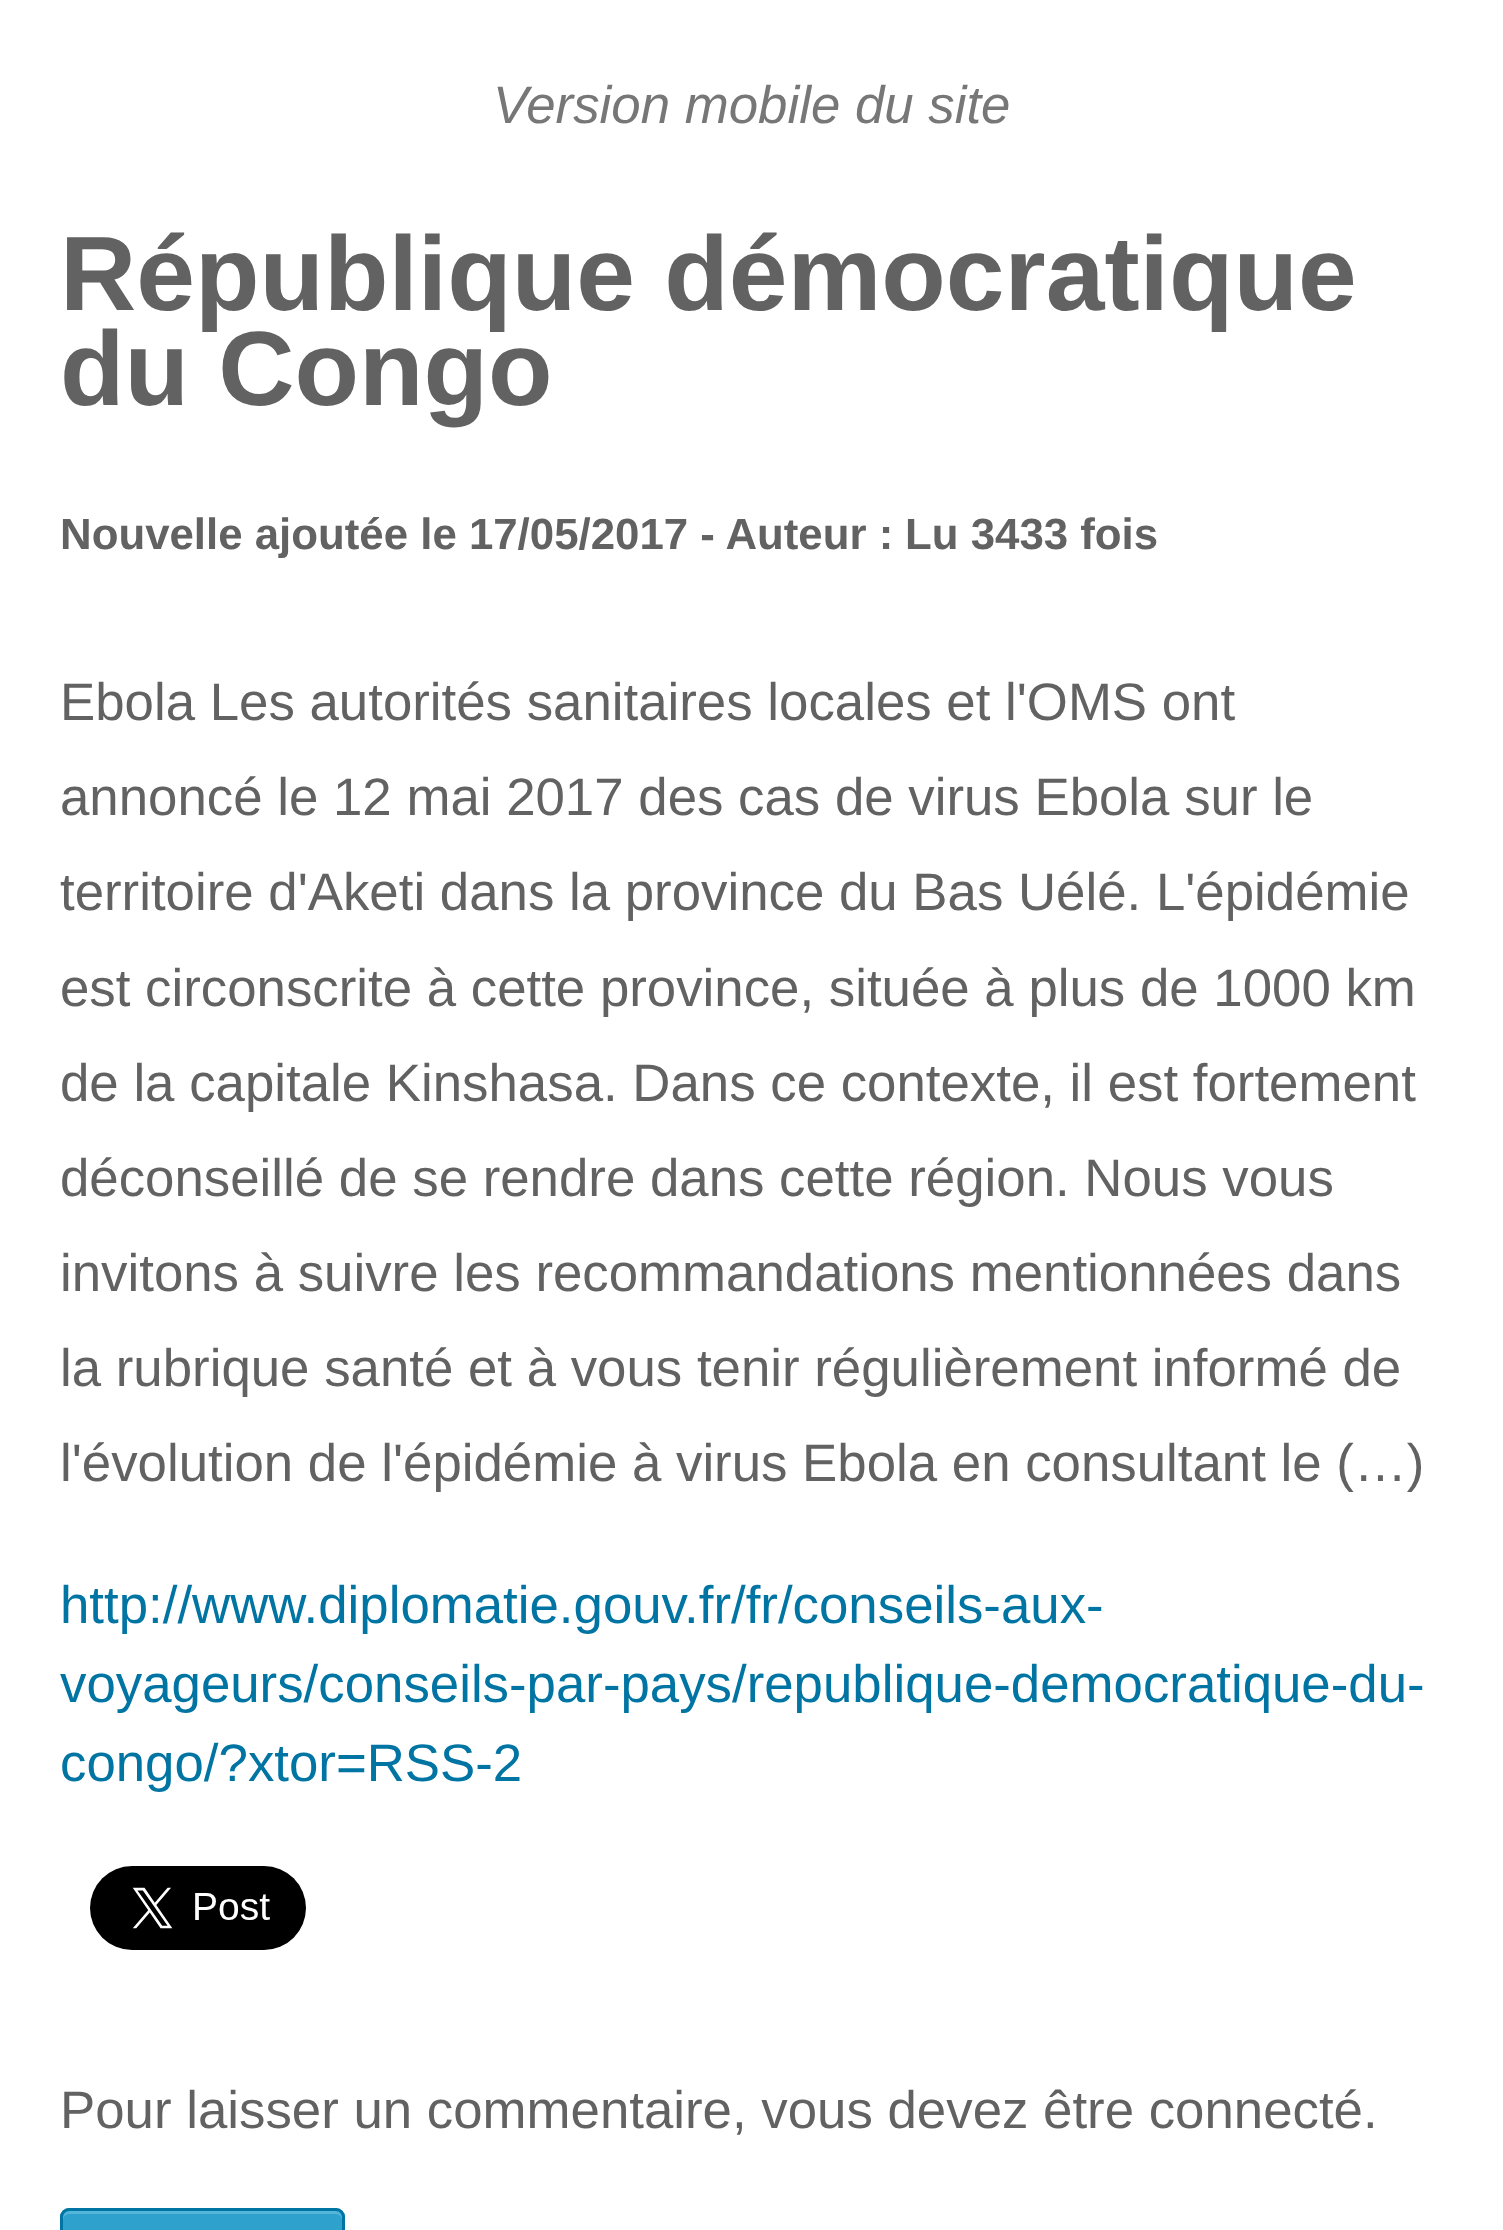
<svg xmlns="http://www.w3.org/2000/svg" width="1503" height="2230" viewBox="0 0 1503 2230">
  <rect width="100%" height="100%" fill="#ffffff"/>
  <text x="493" y="123" font-family="Liberation Sans" font-size="52.8" font-style="italic" fill="#777777">Version mobile du site</text>
  <text x="60" y="310" font-family="Liberation Sans" font-size="105.6" font-weight="bold" fill="#626262">République démocratique</text>
  <text x="60" y="405" font-family="Liberation Sans" font-size="105.6" font-weight="bold" fill="#626262">du Congo</text>
  <text x="60" y="549" font-family="Liberation Sans" font-size="43.8" font-weight="bold" fill="#626262">Nouvelle ajoutée le 17/05/2017 - Auteur :</text>
  <text x="905" y="549" font-family="Liberation Sans" font-size="43.8" font-weight="bold" fill="#626262">Lu 3433 fois</text>
  <text x="60" y="720" font-family="Liberation Sans" font-size="52.8" fill="#626262">Ebola Les autorités sanitaires locales et l'OMS ont</text>
  <text x="60" y="815" font-family="Liberation Sans" font-size="52.8" fill="#626262">annoncé le 12 mai 2017 des cas de virus Ebola sur le</text>
  <text x="60" y="910" font-family="Liberation Sans" font-size="52.8" fill="#626262">territoire d'Aketi dans la province du Bas Uélé. L'épidémie</text>
  <text x="60" y="1006" font-family="Liberation Sans" font-size="52.8" fill="#626262">est circonscrite à cette province, située à plus de 1000 km</text>
  <text x="60" y="1101" font-family="Liberation Sans" font-size="52.8" fill="#626262">de la capitale Kinshasa. Dans ce contexte, il est fortement</text>
  <text x="60" y="1196" font-family="Liberation Sans" font-size="52.8" fill="#626262">déconseillé de se rendre dans cette région. Nous vous</text>
  <text x="60" y="1291" font-family="Liberation Sans" font-size="52.8" fill="#626262">invitons à suivre les recommandations mentionnées dans</text>
  <text x="60" y="1386" font-family="Liberation Sans" font-size="52.8" fill="#626262">la rubrique santé et à vous tenir régulièrement informé de</text>
  <text x="60" y="1481" font-family="Liberation Sans" font-size="52.8" fill="#626262">l'évolution de l'épidémie à virus Ebola en consultant le (…)</text>
  <text x="60" y="1623" font-family="Liberation Sans" font-size="52.8" fill="#0074a2">http://www.diplomatie.gouv.fr/fr/conseils-aux-</text>
  <text x="60" y="1702" font-family="Liberation Sans" font-size="52.8" fill="#0074a2">voyageurs/conseils-par-pays/republique-democratique-du-</text>
  <text x="60" y="1781" font-family="Liberation Sans" font-size="52.8" fill="#0074a2">congo/?xtor=RSS-2</text>
  <image x="90" y="1866" width="216" height="84" href="img1.png"/>
  <text x="60" y="2128" font-family="Liberation Sans" font-size="52.8" fill="#626262">Pour laisser un commentaire, vous devez être connecté.</text>
  <rect x="60" y="2208" width="285" height="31" rx="9" fill="#2ea2cc"/>
  <path d="M69 2214H336C339 2214 342 2217 342 2220V2217C342 2214 339 2211 336 2211H69C66 2211 63 2214 63 2217V2220C63 2217 66 2214 69 2214Z" fill="#53b5d9"/>
  <rect x="61.5" y="2209.5" width="282" height="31" rx="7.5" fill="none" stroke="#0074a2" stroke-width="3"/>
</svg>
